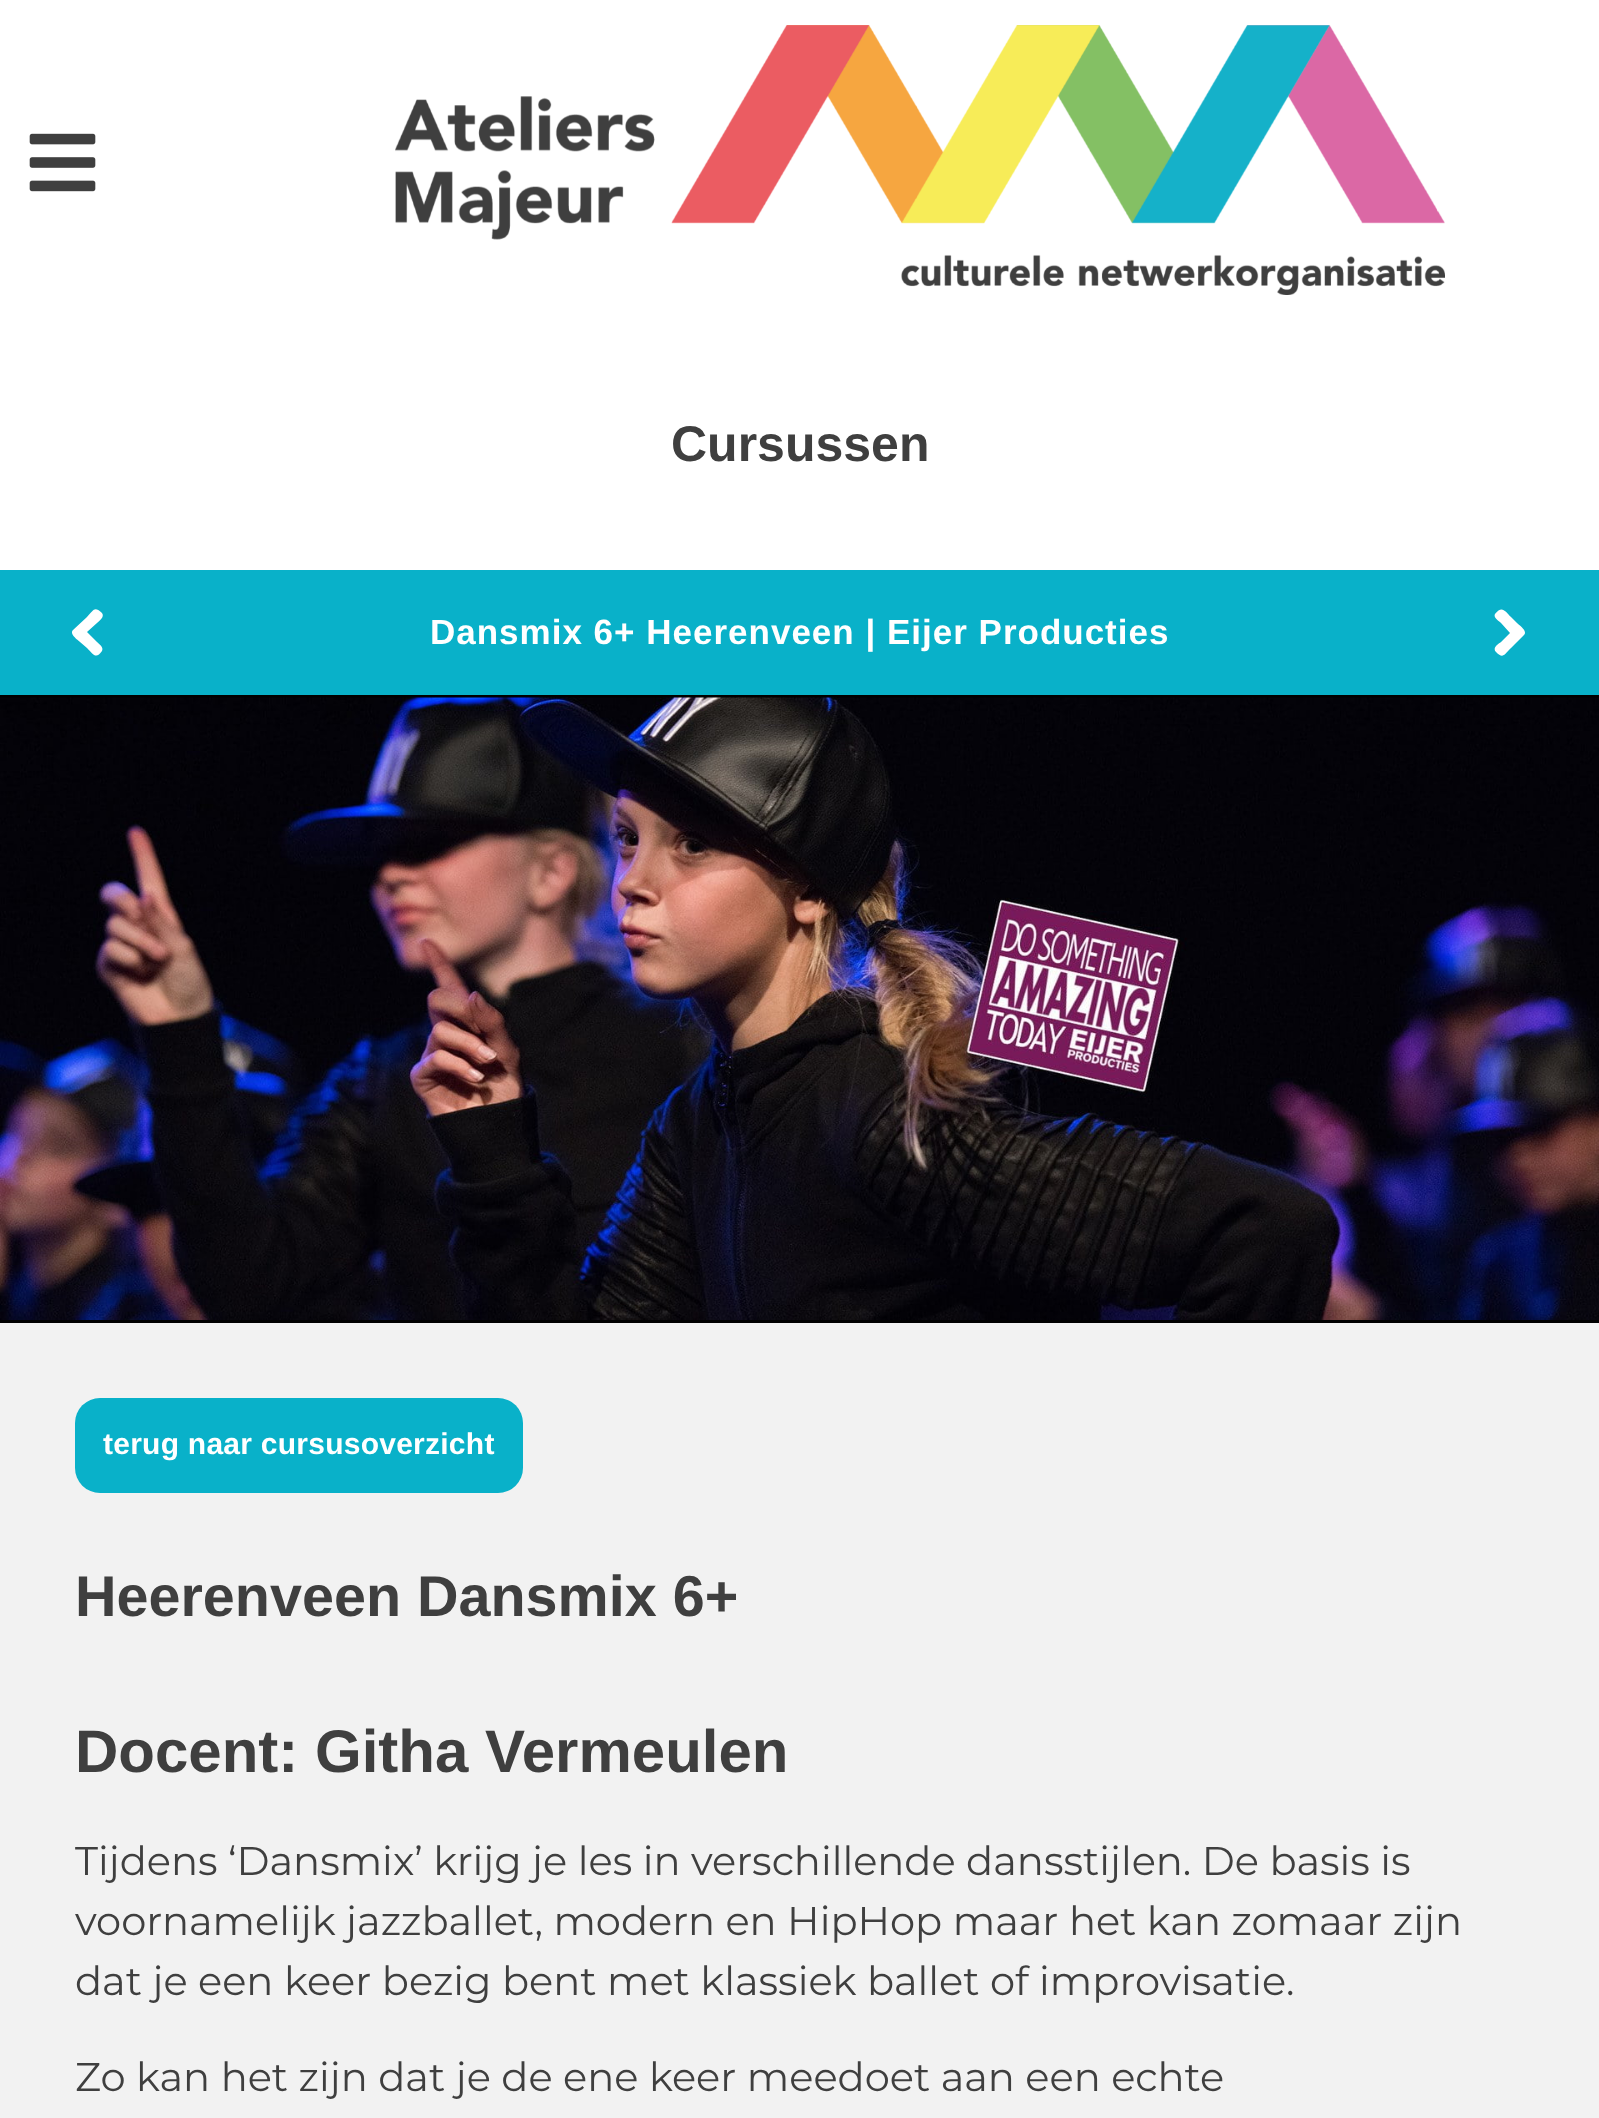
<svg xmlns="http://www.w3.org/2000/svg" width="1599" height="2118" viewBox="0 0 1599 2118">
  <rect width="100%" height="100%" fill="#ffffff"/>
  <image x="29" y="133" width="67" height="59" href="img1.png"/>
  <image x="395" y="25" width="1050" height="270" href="img2.png"/>
  <text x="671" y="461" font-family="Liberation Sans" font-size="50" font-weight="bold" fill="#3f3f3f">Cursussen</text>
  <rect x="0" y="570" width="1599" height="125" fill="#09b1c9"/>
  <path d="M73 630L87 617C94 610 94 606 102 613C105 617 99 621 97 623L87 632L97 642C99 644 104 647 102 651C96 660 93 654 87 648L80 642C78 640 69 634 73 630Z" fill="#ffffff"/>
  <path d="M1524 635L1511 648C1504 655 1503 659 1496 652C1492 648 1498 644 1501 642L1510 633L1501 623C1499 621 1493 618 1495 614C1502 605 1505 611 1511 617L1517 623C1519 625 1528 631 1524 635Z" fill="#ffffff"/>
  <text x="430" y="644" font-family="Liberation Sans" font-size="35" font-weight="bold" letter-spacing="1" fill="#ffffff">Dansmix 6+ Heerenveen | Eijer Producties</text>
  <rect x="0" y="695" width="1599" height="628" fill="#000000"/>
  <image x="0" y="697" width="1599" height="623" href="img3.png"/>
  <rect x="0" y="1323" width="1599" height="795" fill="#f2f2f2"/>
  <rect x="75" y="1398" width="448" height="95" rx="25" fill="#09b1c9"/>
  <text x="103" y="1454" font-family="Liberation Sans" font-size="30" font-weight="bold" letter-spacing="0.25" fill="#ffffff">terug naar cursusoverzicht</text>
  <text x="75" y="1616" font-family="Liberation Sans" font-size="57.5" font-weight="bold" fill="#3f3f3f">Heerenveen Dansmix 6+</text>
  <text x="75" y="1772" font-family="Liberation Sans" font-size="60" font-weight="bold" fill="#3f3f3f">Docent: Githa Vermeulen</text>
  <text x="75" y="1875" font-family="Montserrat" font-size="40" fill="#3f3f3f">Tijdens ‘Dansmix’ krijg je les in verschillende dansstijlen. De basis is</text>
  <text x="75" y="1935" font-family="Montserrat" font-size="40" fill="#3f3f3f">voornamelijk jazzballet, modern en HipHop maar het kan zomaar zijn</text>
  <text x="75" y="1995" font-family="Montserrat" font-size="40" fill="#3f3f3f">dat je een keer bezig bent met klassiek ballet of improvisatie.</text>
  <text x="75" y="2091" font-family="Montserrat" font-size="40" fill="#3f3f3f">Zo kan het zijn dat je de ene keer meedoet aan een echte</text>
</svg>
